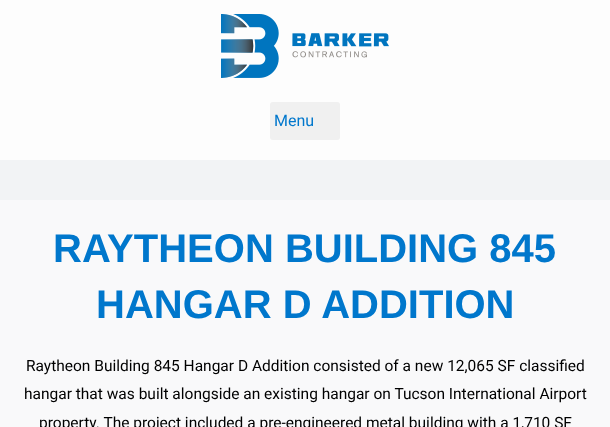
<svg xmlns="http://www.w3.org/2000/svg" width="610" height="427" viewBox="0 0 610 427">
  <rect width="100%" height="100%" fill="#f2f3f5"/>
  <rect x="0" y="0" width="610" height="160" fill="#fdfdfd"/>
  <image x="221" y="14" width="168" height="64" href="img1.png"/>
  <rect x="270" y="102" width="70" height="38" rx="3" fill="#f0f0f0"/>
  <text x="274" y="126" font-family="Roboto" font-size="16" fill="#0077cc">Menu</text>
  <rect x="0" y="200" width="610" height="227" fill="#f9f9fa"/>
  <text x="53" y="262" font-family="Liberation Sans" font-size="40" font-weight="bold" fill="#0077cc">RAYTHEON BUILDING 845</text>
  <text x="96" y="318" font-family="Liberation Sans" font-size="40" font-weight="bold" fill="#0077cc">HANGAR D ADDITION</text>
  <text x="26" y="371" font-family="Roboto" font-size="15.5" fill="#000000">Raytheon Building 845 Hangar D Addition consisted of a new 12,065 SF classified</text>
  <text x="24" y="399" font-family="Roboto" font-size="15.5" fill="#000000">hangar that was built alongside an existing hangar on Tucson International Airport</text>
  <text x="39" y="428" font-family="Roboto" font-size="15.5" fill="#000000">property. The project included a pre-engineered metal building with a 1,710 SF</text>
</svg>
